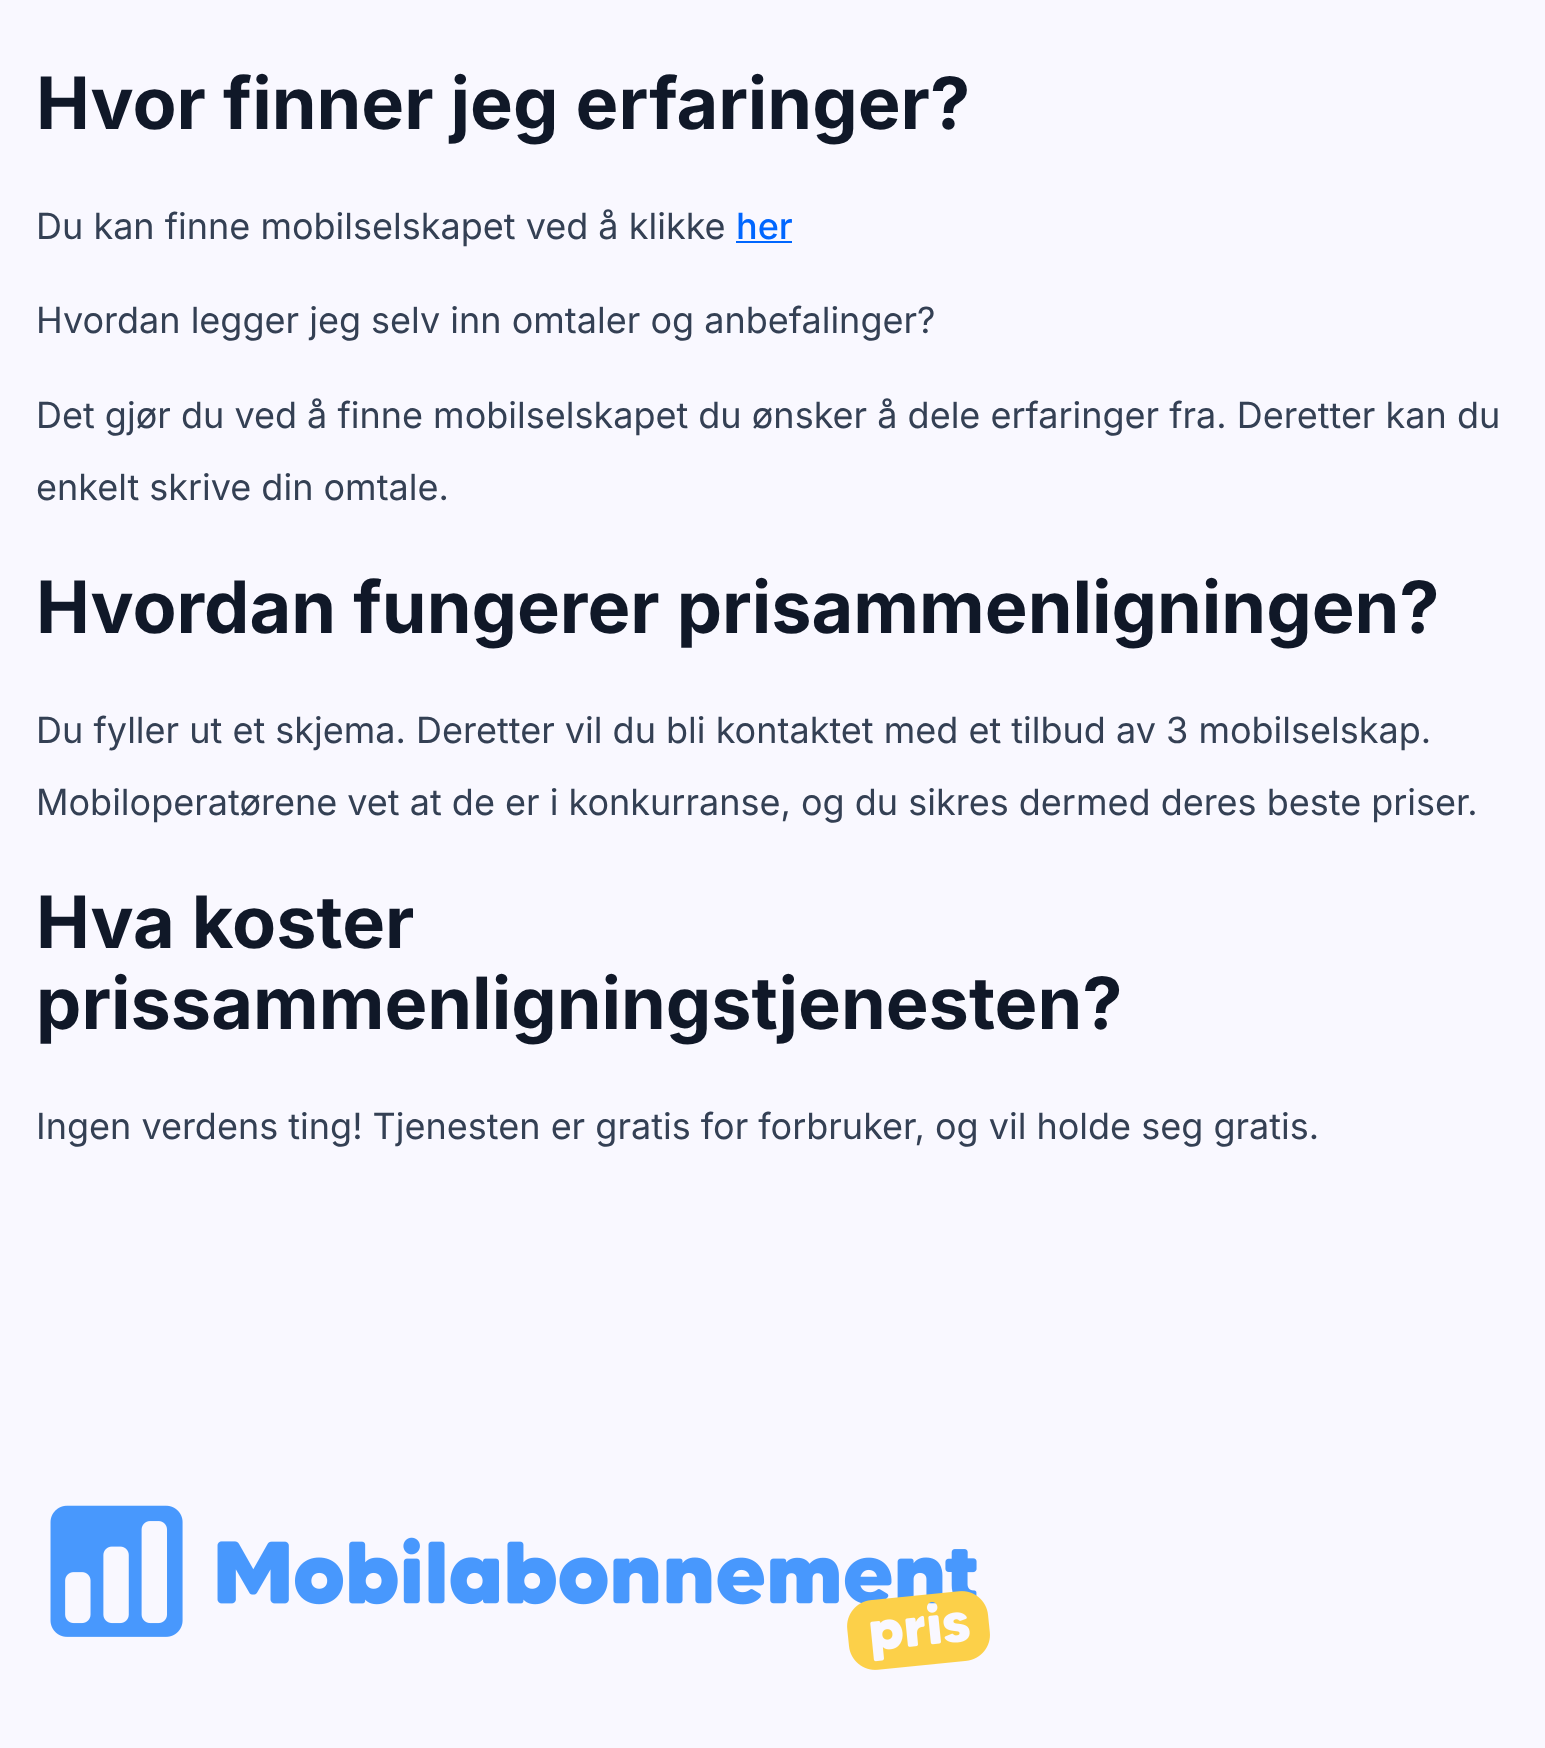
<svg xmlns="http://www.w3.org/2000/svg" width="1545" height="1748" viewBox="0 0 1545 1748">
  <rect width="100%" height="100%" fill="#f9f8ff"/>
  <text x="36" y="129" font-family="Inter" font-size="72" font-weight="bold" fill="#101828">Hvor finner jeg erfaringer?</text>
  <text x="36" y="239" font-family="Inter" font-size="36" fill="#344054">Du kan finne mobilselskapet ved å klikke</text>
  <text x="736" y="239" font-family="Inter" font-size="36" font-weight="500" fill="#0066ff">her</text>
  <rect x="736" y="241" width="56" height="2" fill="#0066ff"/>
  <text x="36" y="333" font-family="Inter" font-size="36" fill="#344054">Hvordan legger jeg selv inn omtaler og anbefalinger?</text>
  <text x="36" y="428" font-family="Inter" font-size="36" fill="#344054">Det gjør du ved å finne mobilselskapet du ønsker å dele erfaringer fra. Deretter kan du</text>
  <text x="36" y="500" font-family="Inter" font-size="36" fill="#344054">enkelt skrive din omtale.</text>
  <text x="36" y="633" font-family="Inter" font-size="72" font-weight="bold" fill="#101828">Hvordan fungerer prisammenligningen?</text>
  <text x="36" y="743" font-family="Inter" font-size="36" fill="#344054">Du fyller ut et skjema. Deretter vil du bli kontaktet med et tilbud av 3 mobilselskap.</text>
  <text x="36" y="815" font-family="Inter" font-size="36" fill="#344054">Mobiloperatørene vet at de er i konkurranse, og du sikres dermed deres beste priser.</text>
  <text x="36" y="948" font-family="Inter" font-size="72" font-weight="bold" fill="#101828">Hva koster</text>
  <text x="36" y="1029" font-family="Inter" font-size="72" font-weight="bold" fill="#101828">prissammenligningstjenesten?</text>
  <text x="36" y="1139" font-family="Inter" font-size="36" fill="#344054">Ingen verdens ting! Tjenesten er gratis for forbruker, og vil holde seg gratis.</text>
  <image x="50" y="1505" width="940" height="165" href="img1.png"/>
</svg>
